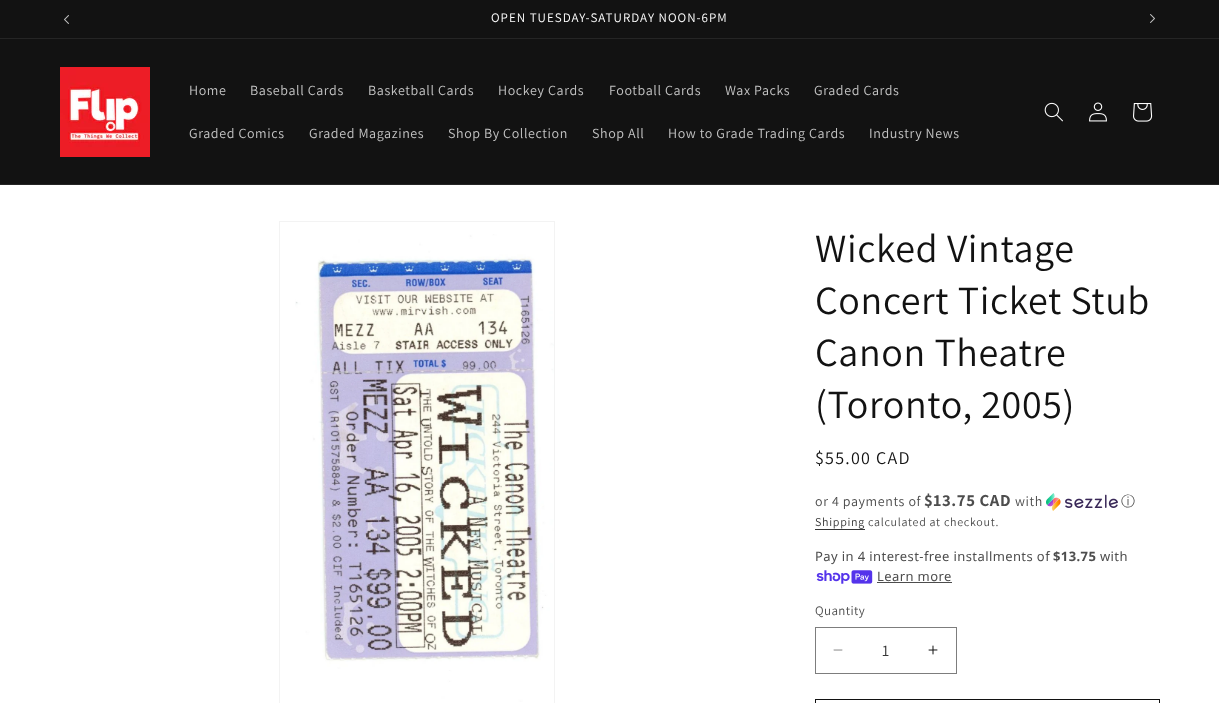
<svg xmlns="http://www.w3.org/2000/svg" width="1219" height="703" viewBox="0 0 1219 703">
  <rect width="100%" height="100%" fill="#ffffff"/>
  <rect x="0" y="0" width="1219" height="38" fill="#121212"/>
  <rect x="0" y="38" width="1219" height="1" fill="#252525"/>
  <image x="64" y="15" width="5" height="9" href="img1.png"/>
  <text x="491" y="22" font-family="Assistant" font-size="13" letter-spacing="1" fill="#ffffff">OPEN TUESDAY-SATURDAY NOON-6PM</text>
  <image x="1150" y="14" width="5" height="9" href="img2.png"/>
  <rect x="0" y="39" width="1219" height="145" fill="#121212"/>
  <rect x="0" y="184" width="1219" height="1" fill="#252525"/>
  <image x="60" y="67" width="90" height="90" href="img3.png"/>
  <text x="189" y="95" font-family="Assistant" font-size="14" letter-spacing="0.6" fill="#c4c4c4">Home</text>
  <text x="250" y="95" font-family="Assistant" font-size="14" letter-spacing="0.6" fill="#c4c4c4">Baseball Cards</text>
  <text x="368" y="95" font-family="Assistant" font-size="14" letter-spacing="0.6" fill="#c4c4c4">Basketball Cards</text>
  <text x="498" y="95" font-family="Assistant" font-size="14" letter-spacing="0.6" fill="#c4c4c4">Hockey Cards</text>
  <text x="609" y="95" font-family="Assistant" font-size="14" letter-spacing="0.6" fill="#c4c4c4">Football Cards</text>
  <text x="725" y="95" font-family="Assistant" font-size="14" letter-spacing="0.6" fill="#c4c4c4">Wax Packs</text>
  <text x="814" y="95" font-family="Assistant" font-size="14" letter-spacing="0.6" fill="#c4c4c4">Graded Cards</text>
  <text x="189" y="138" font-family="Assistant" font-size="14" letter-spacing="0.6" fill="#c4c4c4">Graded Comics</text>
  <text x="309" y="138" font-family="Assistant" font-size="14" letter-spacing="0.6" fill="#c4c4c4">Graded Magazines</text>
  <text x="448" y="138" font-family="Assistant" font-size="14" letter-spacing="0.6" fill="#c4c4c4">Shop By Collection</text>
  <text x="592" y="138" font-family="Assistant" font-size="14" letter-spacing="0.6" fill="#c4c4c4">Shop All</text>
  <text x="668" y="138" font-family="Assistant" font-size="14" letter-spacing="0.6" fill="#c4c4c4">How to Grade Trading Cards</text>
  <text x="869" y="138" font-family="Assistant" font-size="14" letter-spacing="0.6" fill="#c4c4c4">Industry News</text>
  <image x="1044" y="102" width="19" height="20" href="img4.png"/>
  <image x="1089" y="102" width="18" height="20" href="img5.png"/>
  <image x="1133" y="103" width="20" height="19" href="img6.png"/>
  <rect x="279.5" y="221.5" width="275" height="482" fill="none" stroke="#f3f3f3"/>
  <image x="295" y="234" width="259" height="468" href="img7.png"/>
  <text x="815" y="262" font-family="Assistant" font-size="40" letter-spacing="0.6" fill="#121212">Wicked Vintage</text>
  <text x="815" y="314" font-family="Assistant" font-size="40" letter-spacing="0.6" fill="#121212">Concert Ticket Stub</text>
  <text x="815" y="366" font-family="Assistant" font-size="40" letter-spacing="0.6" fill="#121212">Canon Theatre</text>
  <text x="815" y="418" font-family="Assistant" font-size="40" letter-spacing="0.6" fill="#121212">(Toronto, 2005)</text>
  <text x="815" y="464" font-family="Assistant" font-size="18" letter-spacing="1.25" fill="#121212">$55.00 CAD</text>
  <text x="815" y="506" font-family="Assistant" font-size="14" letter-spacing="0.6" fill="#4d4d4d">or 4 payments of</text>
  <text x="924" y="506" font-family="Assistant" font-size="16.75" font-weight="bold" letter-spacing="0.6" fill="#4d4d4d">$13.75 CAD</text>
  <text x="1015" y="506" font-family="Assistant" font-size="14" letter-spacing="0.6" fill="#4d4d4d">with</text>
  <image x="1046" y="493" width="72" height="18" href="img8.png"/>
  <text x="1121" y="506" font-family="WenQuanYi Zen Hei" font-size="14" font-weight="500" letter-spacing="0.6" fill="#4d4d4d">ⓘ</text>
  <text x="815" y="526" font-family="Assistant" font-size="12" letter-spacing="0.7" fill="#363636">Shipping</text>
  <rect x="815" y="529" width="50" height="1" fill="#363636"/>
  <text x="868" y="526" font-family="Assistant" font-size="12" letter-spacing="0.7" fill="#4d4d4d">calculated at checkout.</text>
  <text x="815" y="561" font-family="Noto Sans" font-size="13" letter-spacing="0.4" fill="#4d4d4d">Pay in 4 interest-free installments of</text>
  <text x="1053" y="561" font-family="Noto Sans" font-size="13" font-weight="bold" letter-spacing="0.4" fill="#4d4d4d">$13.75</text>
  <text x="1100" y="561" font-family="Noto Sans" font-size="13" letter-spacing="0.4" fill="#4d4d4d">with</text>
  <image x="816" y="570" width="57" height="14" href="img9.png"/>
  <text x="877" y="581" font-family="Noto Sans" font-size="13" letter-spacing="0.4" fill="#4d4d4d">Learn more</text>
  <rect x="877" y="582" width="75" height="1" fill="#4d4d4d"/>
  <text x="815" y="615" font-family="Assistant" font-size="13" letter-spacing="0.4" fill="#4d4d4d">Quantity</text>
  <image x="833" y="649" width="10" height="2" href="img10.png"/>
  <image x="928" y="645" width="10" height="10" href="img11.png"/>
  <rect x="815.5" y="627.5" width="141" height="46" fill="none" stroke="#7d7d7d"/>
  <text x="882" y="656" font-family="Assistant" font-size="16" fill="#363636">1</text>
  <rect x="815.5" y="699.5" width="344" height="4" fill="none" stroke="#121212"/>
</svg>
